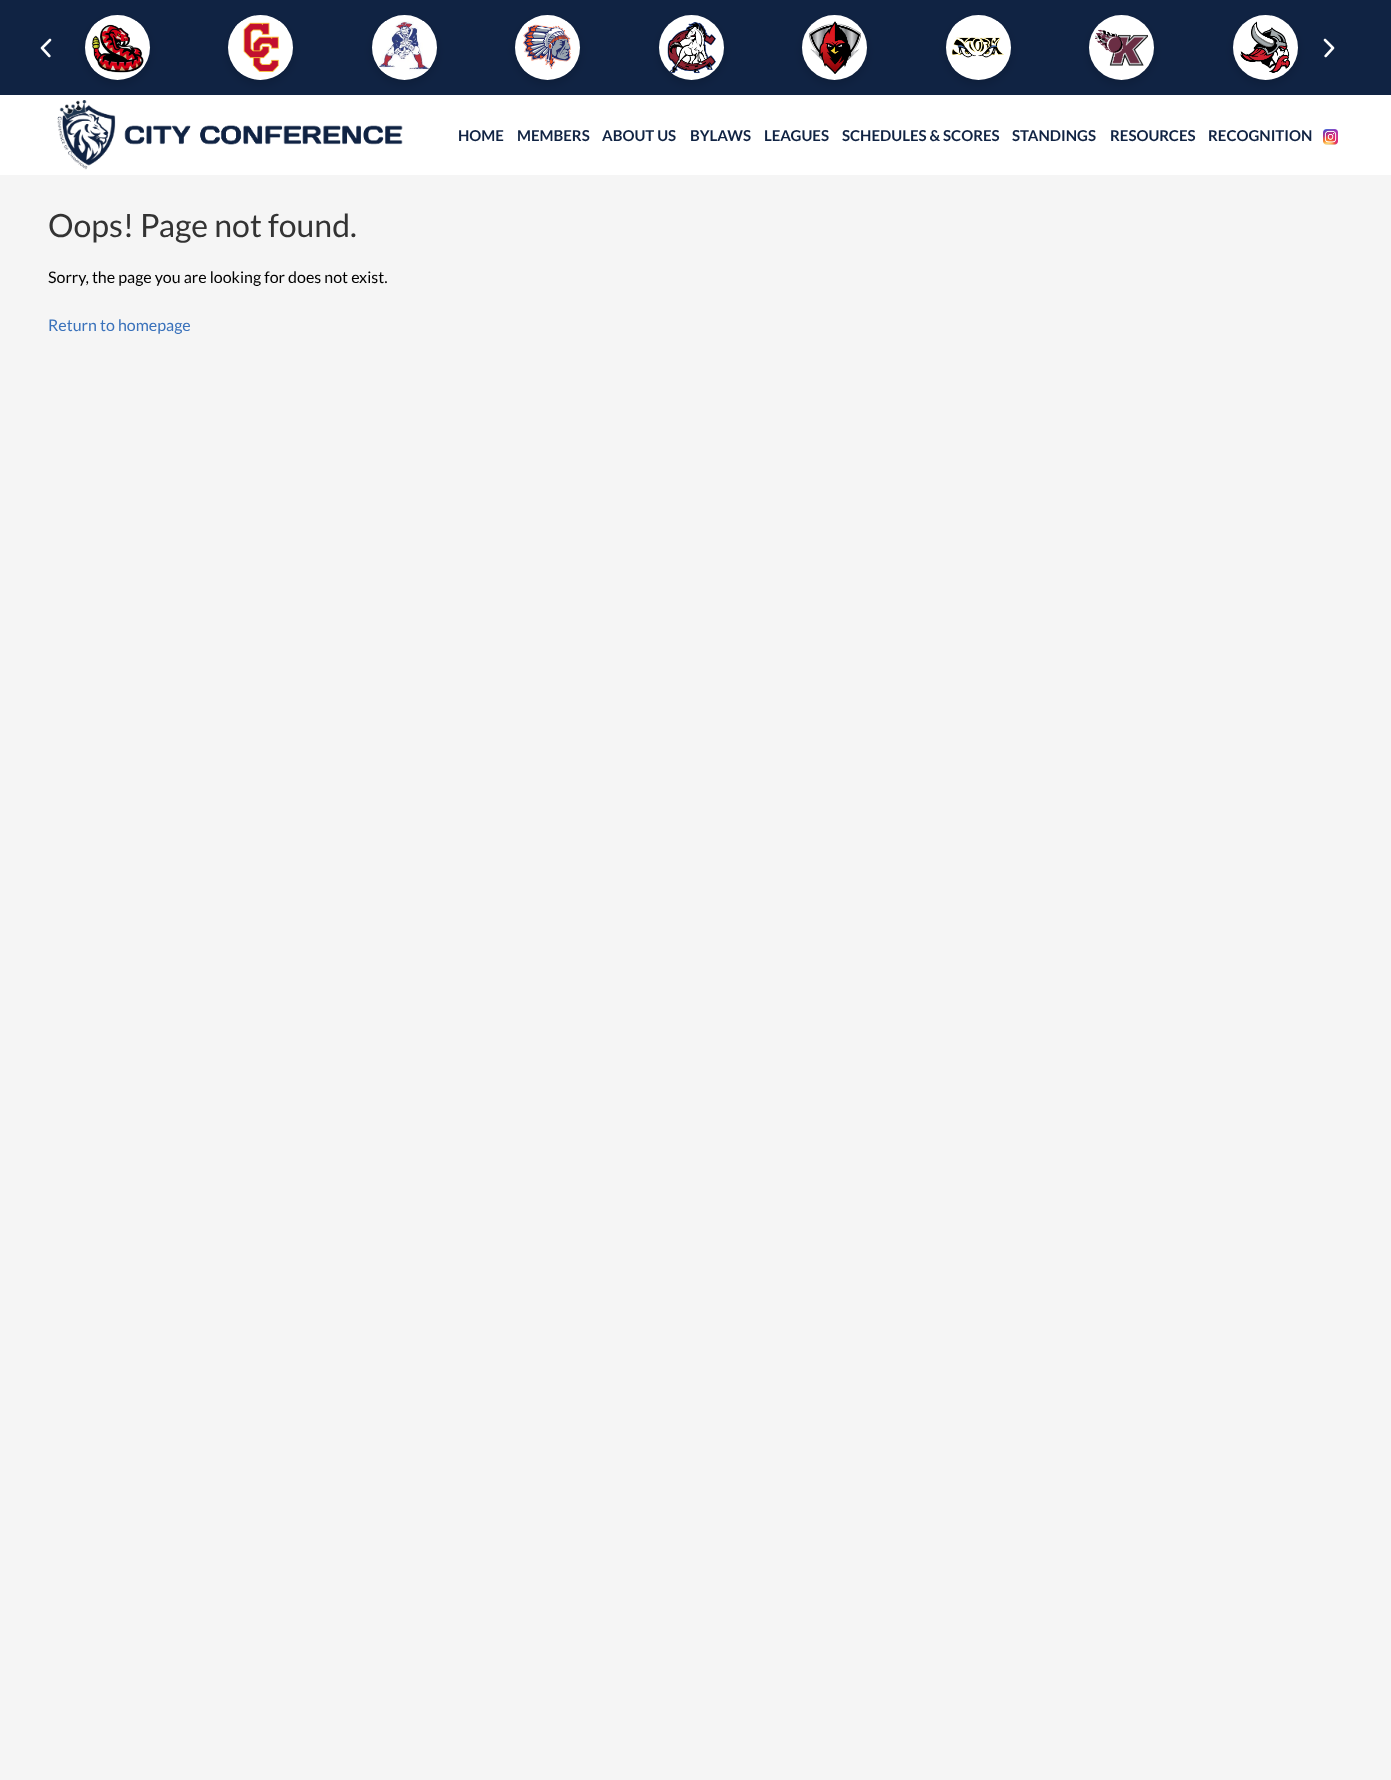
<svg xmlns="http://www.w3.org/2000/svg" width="1391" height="1780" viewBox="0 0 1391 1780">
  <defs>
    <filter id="blur1" x="-50%" y="-200%" width="200%" height="500%"><feGaussianBlur stdDeviation="5"/></filter>
  </defs>
  <rect width="100%" height="100%" fill="#f5f5f5"/>
  <rect x="0" y="0" width="1391" height="95" fill="#102343"/>
  <rect x="0" y="95" width="1391" height="80" fill="#ffffff"/>
  <rect x="85" y="19" width="65" height="65" rx="32.5" fill="#000000" fill-opacity="0.15" filter="url(#blur1)"/>
  <circle cx="117.5" cy="47.5" r="32.5" fill="#ffffff"/>
  <image x="91" y="21" width="53" height="53" href="img1.png"/>
  <rect x="228" y="19" width="65" height="65" rx="32.5" fill="#000000" fill-opacity="0.15" filter="url(#blur1)"/>
  <circle cx="260.5" cy="47.5" r="32.5" fill="#ffffff"/>
  <image x="235" y="21" width="52" height="53" href="img2.png"/>
  <rect x="372" y="19" width="65" height="65" rx="32.5" fill="#000000" fill-opacity="0.15" filter="url(#blur1)"/>
  <circle cx="404.5" cy="47.5" r="32.5" fill="#ffffff"/>
  <image x="378" y="21" width="53" height="53" href="img3.png"/>
  <rect x="515" y="19" width="65" height="65" rx="32.5" fill="#000000" fill-opacity="0.15" filter="url(#blur1)"/>
  <circle cx="547.5" cy="47.5" r="32.5" fill="#ffffff"/>
  <image x="522" y="21" width="52" height="53" href="img4.png"/>
  <rect x="659" y="19" width="65" height="65" rx="32.5" fill="#000000" fill-opacity="0.15" filter="url(#blur1)"/>
  <circle cx="691.5" cy="47.5" r="32.5" fill="#ffffff"/>
  <image x="667" y="22" width="49" height="52" href="img5.png"/>
  <rect x="802" y="19" width="65" height="65" rx="32.5" fill="#000000" fill-opacity="0.15" filter="url(#blur1)"/>
  <circle cx="834.5" cy="47.5" r="32.5" fill="#ffffff"/>
  <image x="808" y="21" width="53" height="53" href="img6.png"/>
  <rect x="946" y="19" width="65" height="65" rx="32.5" fill="#000000" fill-opacity="0.15" filter="url(#blur1)"/>
  <circle cx="978.5" cy="47.5" r="32.5" fill="#ffffff"/>
  <image x="952" y="21" width="52" height="53" href="img7.png"/>
  <rect x="1089" y="19" width="65" height="65" rx="32.5" fill="#000000" fill-opacity="0.15" filter="url(#blur1)"/>
  <circle cx="1121.5" cy="47.5" r="32.5" fill="#ffffff"/>
  <image x="1095" y="29" width="53" height="37" href="img8.png"/>
  <rect x="1233" y="19" width="65" height="65" rx="32.5" fill="#000000" fill-opacity="0.15" filter="url(#blur1)"/>
  <circle cx="1265.5" cy="47.5" r="32.5" fill="#ffffff"/>
  <image x="1240" y="21" width="50" height="52" href="img9.png"/>
  <image x="40" y="38" width="12" height="20" href="img10.png"/>
  <image x="1323" y="38" width="12" height="20" href="img11.png"/>
  <image x="57" y="100" width="346" height="70" href="img12.png"/>
  <text x="458" y="141" font-family="Lato" font-size="15" font-weight="bold" fill="#102343">HOME</text>
  <text x="517" y="141" font-family="Lato" font-size="15" font-weight="bold" fill="#102343">MEMBERS</text>
  <text x="602" y="141" font-family="Lato" font-size="15" font-weight="bold" fill="#102343">ABOUT US</text>
  <text x="690" y="141" font-family="Lato" font-size="15" font-weight="bold" fill="#102343">BYLAWS</text>
  <text x="764" y="141" font-family="Lato" font-size="15" font-weight="bold" fill="#102343">LEAGUES</text>
  <text x="842" y="141" font-family="Lato" font-size="15" font-weight="bold" fill="#102343">SCHEDULES &amp; SCORES</text>
  <text x="1012" y="141" font-family="Lato" font-size="15" font-weight="bold" fill="#102343">STANDINGS</text>
  <text x="1110" y="141" font-family="Lato" font-size="15" font-weight="bold" fill="#102343">RESOURCES</text>
  <text x="1208" y="141" font-family="Lato" font-size="15" font-weight="bold" fill="#102343">RECOGNITION</text>
  <image x="1323" y="129" width="15" height="16" href="img13.png"/>
  <text x="48" y="237" font-family="Lato" font-size="32" fill="#333333">Oops! Page not found.</text>
  <text x="48" y="283" font-family="Lato" font-size="16" fill="#000000">Sorry, the page you are looking for does not exist.</text>
  <text x="48" y="331" font-family="Lato" font-size="16" fill="#3a72bb">Return to homepage</text>
</svg>
